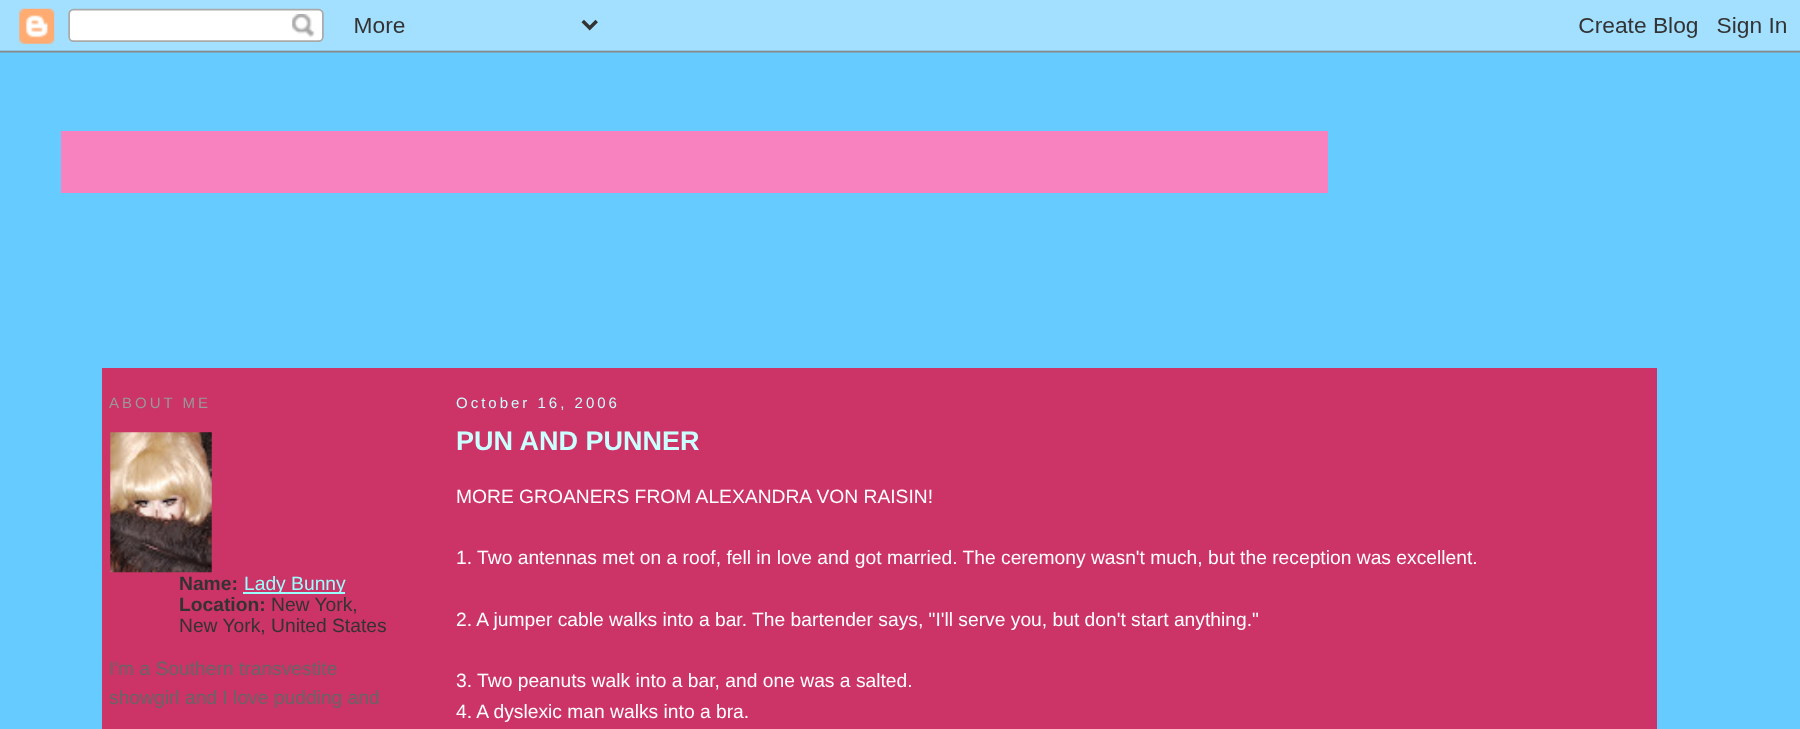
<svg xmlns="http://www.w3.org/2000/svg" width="1800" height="729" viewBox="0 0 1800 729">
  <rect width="100%" height="100%" fill="#66ccff"/>
  <image x="0" y="0" width="1800" height="53" href="img1.png"/>
  <rect x="61" y="131" width="1267" height="62" fill="#f881bf"/>
  <rect x="102" y="368" width="1555" height="361" fill="#cc3366"/>
  <text x="109" y="408" font-family="Liberation Sans" font-size="15" letter-spacing="3" fill="#999999">ABOUT ME</text>
  <image x="110" y="432" width="102" height="141" href="img2.png"/>
  <text x="179" y="590" font-family="Liberation Sans" font-size="19.25" font-weight="bold" fill="#333333">Name:</text>
  <rect x="243" y="592" width="102" height="2" fill="#99ffff"/>
  <text x="244" y="590" font-family="Liberation Sans" font-size="19.25" fill="#99ffff">Lady Bunny</text>
  <text x="179" y="611" font-family="Liberation Sans" font-size="19.25" font-weight="bold" fill="#333333">Location:</text>
  <text x="271" y="611" font-family="Liberation Sans" font-size="19.25" fill="#333333">New York,</text>
  <text x="179" y="632" font-family="Liberation Sans" font-size="19.25" fill="#333333">New York, United States</text>
  <text x="109" y="675" font-family="Liberation Sans" font-size="19.25" fill="#666666">I'm a Southern transvestite</text>
  <text x="109" y="704" font-family="Liberation Sans" font-size="19.25" fill="#666666">showgirl and I love pudding and</text>
  <text x="456" y="408" font-family="Liberation Sans" font-size="15" letter-spacing="3" fill="#ccffff">October 16, 2006</text>
  <text x="456" y="450" font-family="Liberation Sans" font-size="27" font-weight="bold" fill="#ccffff">PUN AND PUNNER</text>
  <text x="456" y="503" font-family="Liberation Sans" font-size="19.25" fill="#ffffff">MORE GROANERS FROM ALEXANDRA VON RAISIN!</text>
  <text x="456" y="564" font-family="Liberation Sans" font-size="19.25" fill="#ffffff">1. Two antennas met on a roof, fell in love and got married. The ceremony wasn't much, but the reception was excellent.</text>
  <text x="456" y="626" font-family="Liberation Sans" font-size="19.25" fill="#ffffff">2. A jumper cable walks into a bar. The bartender says, "I'll serve you, but don't start anything."</text>
  <text x="456" y="687" font-family="Liberation Sans" font-size="19.25" fill="#ffffff">3. Two peanuts walk into a bar, and one was a salted.</text>
  <text x="456" y="718" font-family="Liberation Sans" font-size="19.25" fill="#ffffff">4. A dyslexic man walks into a bra.</text>
</svg>
